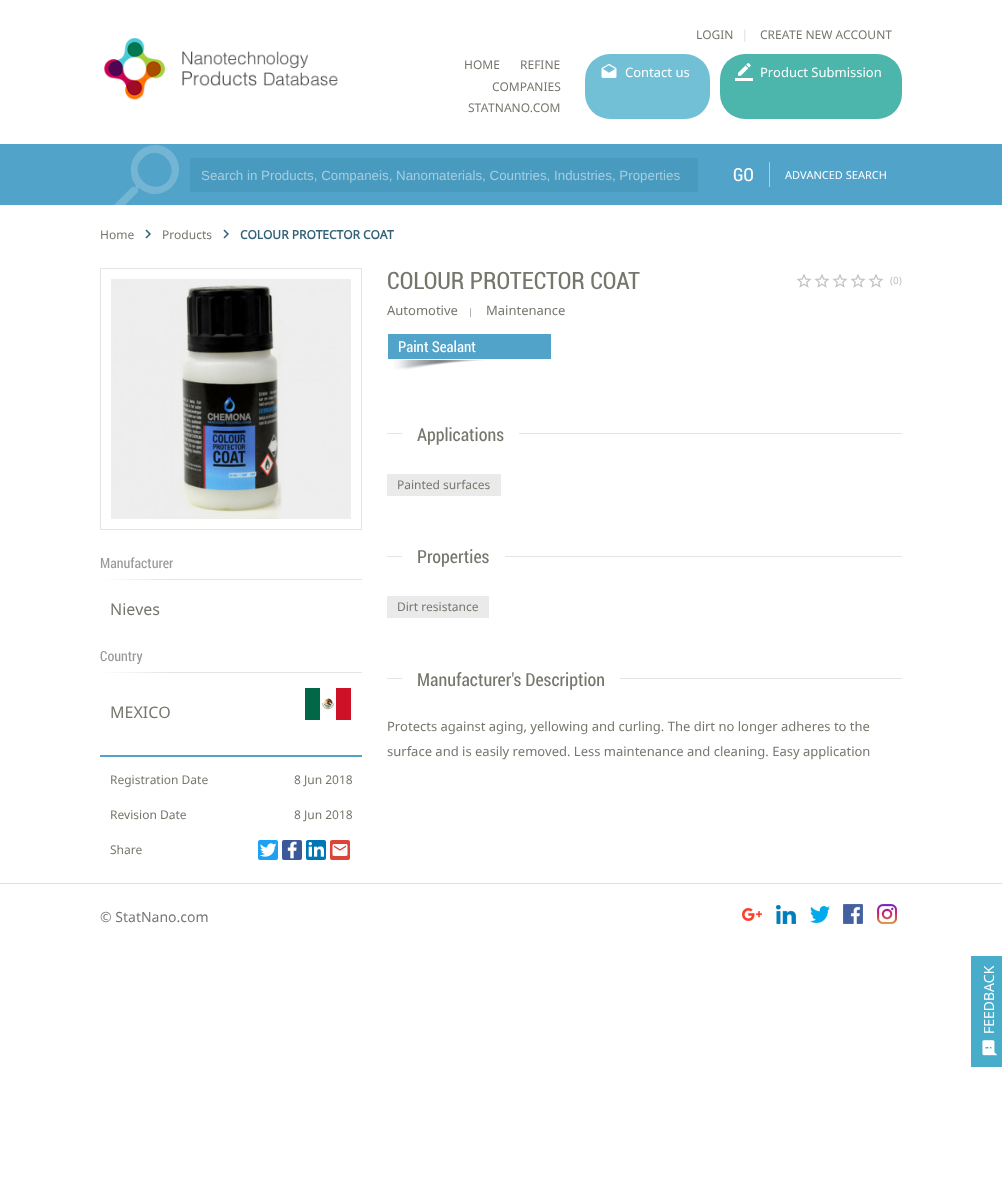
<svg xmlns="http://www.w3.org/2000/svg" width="1002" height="1179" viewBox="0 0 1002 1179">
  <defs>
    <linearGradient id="g1" gradientUnits="userSpaceOnUse" x1="100" y1="580" x2="170" y2="580"><stop offset="0" stop-color="#ffffff"/><stop offset="1" stop-color="#ffffff" stop-opacity="0"/></linearGradient>
    <linearGradient id="g2" gradientUnits="userSpaceOnUse" x1="100" y1="673" x2="170" y2="673"><stop offset="0" stop-color="#ffffff"/><stop offset="1" stop-color="#ffffff" stop-opacity="0"/></linearGradient>
  </defs>
  <rect width="100%" height="100%" fill="#ffffff"/>
  <image x="104" y="38" width="234" height="62" href="img1.png"/>
  <text x="696" y="39" font-family="Noto Sans" font-size="12" fill="#76766d">LOGIN</text>
  <text x="743" y="39" font-family="Liberation Sans" font-size="13.35" fill="#e4e4e2">|</text>
  <text x="760" y="39" font-family="Noto Sans" font-size="12" fill="#76766d">CREATE NEW ACCOUNT</text>
  <text x="464" y="69" font-family="Noto Sans" font-size="12" fill="#76766d">HOME</text>
  <text x="520" y="69" font-family="Noto Sans" font-size="12" fill="#76766d">REFINE</text>
  <text x="492" y="91" font-family="Noto Sans" font-size="12" fill="#76766d">COMPANIES</text>
  <text x="468" y="112" font-family="Noto Sans" font-size="12" fill="#76766d">STATNANO.COM</text>
  <rect x="585" y="54" width="125" height="65" rx="25" fill="#72c0d6"/>
  <image x="601" y="63" width="16" height="15" href="img2.png"/>
  <text x="625" y="77" font-family="Noto Sans" font-size="13" fill="#ffffff">Contact us</text>
  <rect x="720" y="54" width="182" height="65" rx="25" fill="#4db6ac"/>
  <image x="735" y="63" width="18" height="18" href="img3.png"/>
  <text x="760" y="77" font-family="Noto Sans" font-size="13" fill="#ffffff">Product Submission</text>
  <rect x="0" y="144" width="1002" height="61" fill="#52a3c9"/>
  <path d="M167 182C151 197 127 173 143 158C158 142 182 166 167 182ZM132 187L114 205L119 211L138 192V189L139 188C143 191 147 193 152 194C175 196 188 169 172 152C156 136 129 149 131 172C131 177 133 182 136 186L135 187Z" fill="#ffffff" fill-opacity="0.2"/>
  <rect x="190" y="158" width="508" height="34" fill="#499abf"/>
  <text x="201" y="180" font-family="Liberation Sans" font-size="13.35" fill="#a4cddf">Search in Products, Companeis, Nanomaterials, Countries, Industries, Properties</text>
  <text x="733" y="181" font-family="Roboto Condensed" font-size="18" fill="#ffffff">GO</text>
  <rect x="769" y="162" width="1" height="25" fill="#a9d1e4"/>
  <text x="785" y="179" font-family="Noto Sans" font-size="11" fill="#ffffff">ADVANCED SEARCH</text>
  <text x="100" y="239" font-family="Noto Sans" font-size="12" fill="#76766d">Home</text>
  <image x="145" y="229" width="6" height="10" href="img4.png"/>
  <text x="162" y="239" font-family="Noto Sans" font-size="12" fill="#76766d">Products</text>
  <image x="223" y="229" width="6" height="10" href="img4.png"/>
  <text x="240" y="239" font-family="Noto Sans" font-size="12" font-weight="bold" fill="#326075">COLOUR PROTECTOR COAT</text>
  <rect x="100.5" y="268.5" width="261" height="261" fill="none" stroke="#e4e4e4"/>
  <image x="111" y="279" width="240" height="240" href="img5.png"/>
  <text x="100" y="568" font-family="Roboto Condensed" font-size="14" fill="#989898">Manufacturer</text>
  <rect x="100" y="579" width="262" height="1" fill="#e4e4e4"/>
  <rect x="100" y="579" width="70" height="1" fill="url(#g1)"/>
  <text x="110" y="615" font-family="Noto Sans" font-size="16" fill="#76766d">Nieves</text>
  <text x="100" y="661" font-family="Roboto Condensed" font-size="14" fill="#989898">Country</text>
  <rect x="100" y="672" width="262" height="1" fill="#e4e4e4"/>
  <rect x="100" y="672" width="70" height="1" fill="url(#g2)"/>
  <text x="110" y="718" font-family="Noto Sans" font-size="16" fill="#76766d">MEXICO</text>
  <image x="305" y="688" width="46" height="32" href="img6.png"/>
  <rect x="100" y="755" width="262" height="2" fill="#52a3c9"/>
  <text x="110" y="784" font-family="Noto Sans" font-size="12" fill="#76766d">Registration Date</text>
  <text x="294" y="784" font-family="Noto Sans" font-size="12" fill="#76766d">8 Jun 2018</text>
  <text x="110" y="819" font-family="Noto Sans" font-size="12" fill="#76766d">Revision Date</text>
  <text x="294" y="819" font-family="Noto Sans" font-size="12" fill="#76766d">8 Jun 2018</text>
  <text x="110" y="854" font-family="Noto Sans" font-size="12" fill="#76766d">Share</text>
  <rect x="258" y="840" width="20" height="20" rx="2" fill="#1da1f2"/>
  <image x="259" y="843" width="18" height="14" href="img7.png"/>
  <rect x="282" y="840" width="20" height="20" rx="2" fill="#3b5998"/>
  <image x="287" y="841" width="10" height="18" href="img8.png"/>
  <rect x="306" y="840" width="20" height="20" rx="2" fill="#0077b5"/>
  <image x="308" y="842" width="16" height="15" href="img9.png"/>
  <rect x="330" y="840" width="20" height="20" rx="2" fill="#db4437"/>
  <image x="332" y="844" width="16" height="12" href="img10.png"/>
  <text x="387" y="289" font-family="Roboto Condensed" font-size="24" fill="#76766d">COLOUR PROTECTOR COAT</text>
  <image x="796" y="274" width="16" height="14" href="img11.png"/>
  <image x="814" y="274" width="16" height="14" href="img11.png"/>
  <image x="832" y="274" width="16" height="14" href="img11.png"/>
  <image x="850" y="274" width="16" height="14" href="img11.png"/>
  <image x="868" y="274" width="16" height="14" href="img11.png"/>
  <text x="890" y="284" font-family="Noto Sans" font-size="10" fill="#c0c0c0">(0)</text>
  <text x="387" y="315" font-family="Noto Sans" font-size="13" fill="#76766d">Automotive</text>
  <text x="468" y="315" font-family="Noto Sans" font-size="9" fill="#909090">|</text>
  <text x="486" y="315" font-family="Noto Sans" font-size="13" fill="#76766d">Maintenance</text>
  <rect x="388" y="334" width="163" height="25" fill="#52a3c9"/>
  <text x="398" y="352" font-family="Roboto Condensed" font-size="15" fill="#ffffff">Paint Sealant</text>
  <image x="393" y="360" width="94" height="10" href="img12.png"/>
  <rect x="387" y="433" width="515" height="1" fill="#e4e4e4"/>
  <rect x="402" y="433" width="117" height="1" fill="#ffffff"/>
  <text x="417" y="441" font-family="Roboto Condensed" font-size="18" fill="#76766d">Applications</text>
  <rect x="387" y="474" width="114" height="22" fill="#eaeaea"/>
  <text x="397" y="489" font-family="Noto Sans" font-size="12" fill="#76766d">Painted surfaces</text>
  <rect x="387" y="556" width="515" height="1" fill="#e4e4e4"/>
  <rect x="402" y="556" width="103" height="1" fill="#ffffff"/>
  <text x="417" y="563" font-family="Roboto Condensed" font-size="18" fill="#76766d">Properties</text>
  <rect x="387" y="596" width="102" height="22" fill="#eaeaea"/>
  <text x="397" y="611" font-family="Noto Sans" font-size="12" fill="#76766d">Dirt resistance</text>
  <rect x="387" y="678" width="515" height="1" fill="#e4e4e4"/>
  <rect x="402" y="678" width="218" height="1" fill="#ffffff"/>
  <text x="417" y="686" font-family="Roboto Condensed" font-size="18" fill="#76766d">Manufacturer's Description</text>
  <text x="387" y="731" font-family="Noto Sans" font-size="13" fill="#76766d">Protects against aging, yellowing and curling. The dirt no longer adheres to the</text>
  <text x="387" y="756" font-family="Noto Sans" font-size="13" fill="#76766d">surface and is easily removed. Less maintenance and cleaning. Easy application</text>
  <rect x="0" y="883" width="1002" height="1" fill="#e1e1e1"/>
  <text x="100" y="922" font-family="Noto Sans" font-size="14" fill="#777777">© StatNano.com</text>
  <image x="742" y="908" width="20" height="13" href="img13.png"/>
  <image x="776" y="905" width="20" height="19" href="img14.png"/>
  <image x="810" y="906" width="20" height="17" href="img15.png"/>
  <image x="843" y="904" width="20" height="20" href="img16.png"/>
  <image x="877" y="904" width="20" height="20" href="img17.png"/>
  <rect x="971" y="956" width="31" height="111" fill="#47adca"/>
  <text x="994" y="1034" transform="rotate(-90 994 1034)" font-family="Noto Sans" font-size="14" fill="#ffffff">FEEDBACK</text>
  <image x="982" y="1040" width="16" height="16" href="img18.png"/>
</svg>
